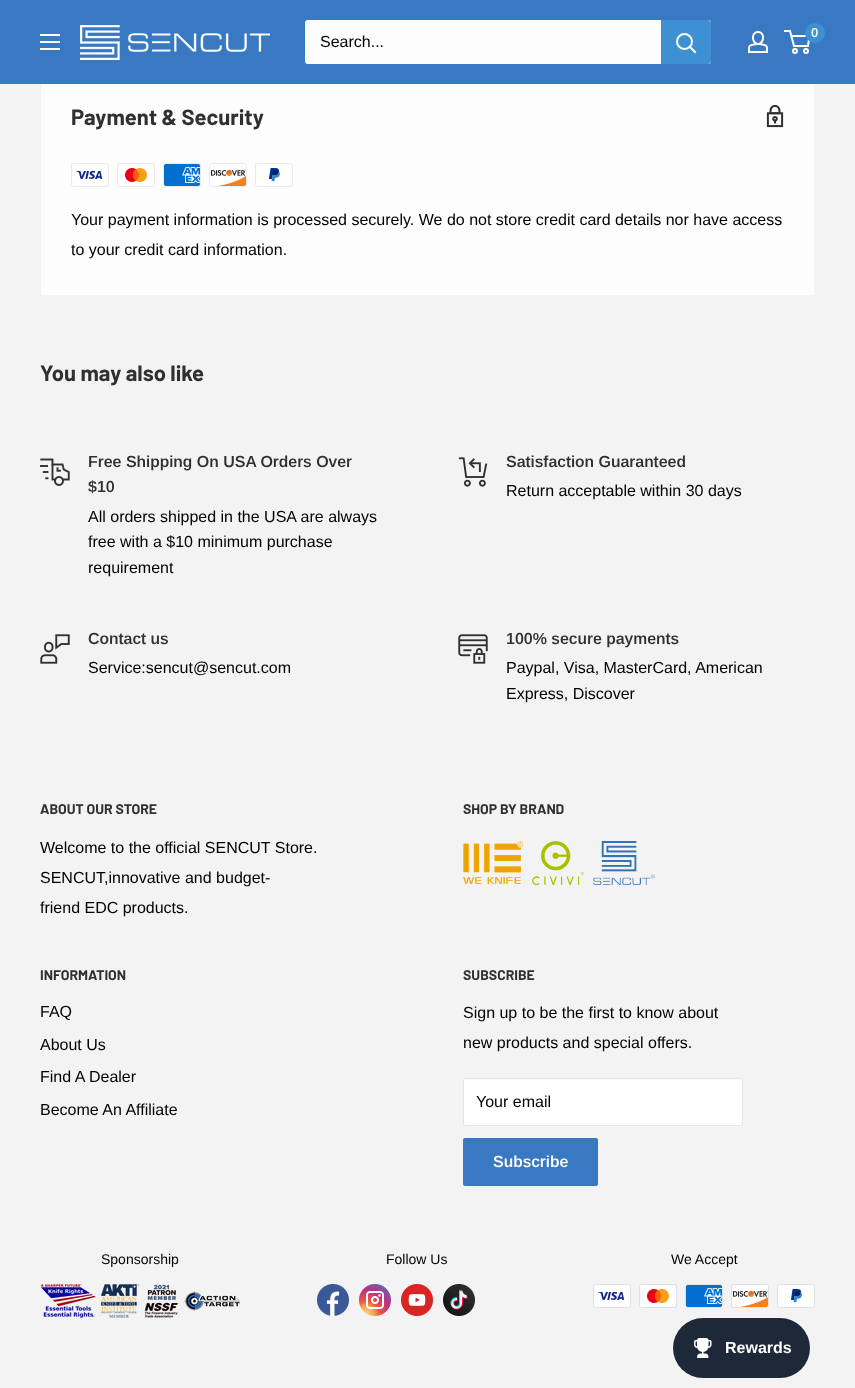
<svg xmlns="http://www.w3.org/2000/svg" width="855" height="1388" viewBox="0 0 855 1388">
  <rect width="100%" height="100%" fill="#f3f3f3"/>
  <rect x="40.5" y="69.5" width="774" height="226" rx="2.5" fill="#fdfdfd" stroke="#f3f3f3"/>
  <rect x="0" y="0" width="855" height="84" fill="#3979c1"/>
  <image x="80" y="25" width="190" height="35" href="img1.png"/>
  <image x="748" y="31" width="20" height="22" href="img2.png"/>
  <circle cx="795" cy="51" r="2" fill="none" stroke="#fdfdfd" stroke-width="2"/>
  <circle cx="806" cy="51" r="2" fill="none" stroke="#fdfdfd" stroke-width="2"/>
  <path d="M791.5 36H809.5L808 46H794L790 31H784" fill="none" stroke="#fdfdfd" stroke-width="2"/>
  <circle cx="815" cy="33" r="10" fill="#3d90d1"/>
  <text x="811" y="37" font-family="Arimo" font-size="13" font-weight="600" fill="#fffdfd">0</text>
  <image x="40" y="34" width="20" height="16" href="img3.png"/>
  <rect x="305" y="20" width="406" height="44" rx="3" fill="#fdfdfd"/>
  <text x="320" y="47" font-family="Arimo" font-size="16" fill="#000000">Search...</text>
  <path d="M661 20H708C709.5 20 711 21.5 711 23V61C711 62.5 709.5 64 708 64H661Z" fill="#3d90d1"/>
  <path d="M695 52L690 47" fill="none" stroke="#fdfdfd" stroke-width="2" stroke-linecap="square"/>
  <circle cx="684.5" cy="41.5" r="7.5" fill="none" stroke="#fdfdfd" stroke-width="2"/>
  <text x="71" y="125" font-family="Barlow" font-size="22" font-weight="bold" fill="#303030">Payment &amp; Security</text>
  <image x="766" y="104" width="18" height="24" href="img4.png"/>
  <image x="71" y="163" width="38" height="24" href="img5.png"/>
  <image x="117" y="163" width="38" height="24" href="img6.png"/>
  <image x="163" y="163" width="38" height="24" href="img7.png"/>
  <image x="209" y="163" width="38" height="24" href="img8.png"/>
  <image x="255" y="163" width="38" height="24" href="img9.png"/>
  <text x="71" y="225" font-family="Arimo" font-size="16" fill="#000000">Your payment information is processed securely. We do not store credit card details nor have access</text>
  <text x="71" y="255" font-family="Arimo" font-size="16" fill="#000000">to your credit card information.</text>
  <text x="40" y="381" font-family="Barlow" font-size="22" font-weight="bold" fill="#303030">You may also like</text>
  <image x="40" y="458" width="30" height="28" href="img10.png"/>
  <text x="88" y="467" font-family="Arimo" font-size="16" font-weight="600" fill="#303030">Free Shipping On USA Orders Over</text>
  <text x="88" y="492" font-family="Arimo" font-size="16" font-weight="600" fill="#303030">$10</text>
  <text x="88" y="522" font-family="Arimo" font-size="16" fill="#000000">All orders shipped in the USA are always</text>
  <text x="88" y="547" font-family="Arimo" font-size="16" fill="#000000">free with a $10 minimum purchase</text>
  <text x="88" y="573" font-family="Arimo" font-size="16" fill="#000000">requirement</text>
  <image x="458" y="457" width="30" height="30" href="img11.png"/>
  <text x="506" y="467" font-family="Arimo" font-size="16" font-weight="600" fill="#303030">Satisfaction Guaranteed</text>
  <text x="506" y="496" font-family="Arimo" font-size="16" fill="#000000">Return acceptable within 30 days</text>
  <image x="40" y="634" width="30" height="30" href="img12.png"/>
  <text x="88" y="644" font-family="Arimo" font-size="16" font-weight="600" fill="#303030">Contact us</text>
  <text x="88" y="673" font-family="Arimo" font-size="16" fill="#000000">Service:sencut@sencut.com</text>
  <image x="458" y="634" width="30" height="30" href="img13.png"/>
  <text x="506" y="644" font-family="Arimo" font-size="16" font-weight="600" fill="#303030">100% secure payments</text>
  <text x="506" y="673" font-family="Arimo" font-size="16" fill="#000000">Paypal, Visa, MasterCard, American</text>
  <text x="506" y="699" font-family="Arimo" font-size="16" fill="#000000">Express, Discover</text>
  <text x="40" y="814" font-family="Barlow" font-size="14" font-weight="bold" fill="#303030">ABOUT OUR STORE</text>
  <text x="40" y="853" font-family="Arimo" font-size="16" fill="#000000">Welcome to the official SENCUT Store.</text>
  <text x="40" y="883" font-family="Arimo" font-size="16" fill="#000000">SENCUT,innovative and budget-</text>
  <text x="40" y="913" font-family="Arimo" font-size="16" fill="#000000">friend EDC products.</text>
  <text x="463" y="814" font-family="Barlow" font-size="14" font-weight="bold" fill="#303030">SHOP BY BRAND</text>
  <image x="463" y="841" width="60" height="43" href="img14.png"/>
  <image x="532" y="841" width="52" height="44" href="img15.png"/>
  <image x="593" y="841" width="62" height="44" href="img16.png"/>
  <text x="40" y="980" font-family="Barlow" font-size="14" font-weight="bold" fill="#303030">INFORMATION</text>
  <text x="40" y="1017" font-family="Arimo" font-size="16" fill="#000000">FAQ</text>
  <text x="40" y="1050" font-family="Arimo" font-size="16" fill="#000000">About Us</text>
  <text x="40" y="1082" font-family="Arimo" font-size="16" fill="#000000">Find A Dealer</text>
  <text x="40" y="1115" font-family="Arimo" font-size="16" fill="#000000">Become An Affiliate</text>
  <text x="463" y="980" font-family="Barlow" font-size="14" font-weight="bold" fill="#303030">SUBSCRIBE</text>
  <text x="463" y="1018" font-family="Arimo" font-size="16" fill="#000000">Sign up to be the first to know about</text>
  <text x="463" y="1048" font-family="Arimo" font-size="16" fill="#000000">new products and special offers.</text>
  <rect x="463" y="1078" width="280" height="48" rx="2" fill="#ffffff"/>
  <path d="M465 1080H741C742 1080 742 1080 742 1081C742 1080 742 1079 741 1079H465H464V1081C464 1080 464 1080 465 1080Z" fill="#f9f9f9"/>
  <rect x="463.5" y="1078.5" width="279" height="47" rx="1.5" fill="none" stroke="#e6e6e6"/>
  <text x="476" y="1107" font-family="Arimo" font-size="16" fill="#000000">Your email</text>
  <rect x="463" y="1138" width="135" height="48" rx="2" fill="#3979c1"/>
  <text x="493" y="1167" font-family="Arimo" font-size="16" font-weight="600" fill="#fffdfd">Subscribe</text>
  <text x="101" y="1264" font-family="Arimo" font-size="14" fill="#000000">Sponsorship</text>
  <image x="40" y="1284" width="200" height="34" href="img17.png"/>
  <text x="386" y="1264" font-family="Arimo" font-size="14" fill="#000000">Follow Us</text>
  <image x="317" y="1284" width="32" height="32" href="img18.png"/>
  <image x="359" y="1284" width="32" height="32" href="img19.png"/>
  <image x="401" y="1284" width="32" height="32" href="img20.png"/>
  <image x="443" y="1284" width="32" height="32" href="img21.png"/>
  <text x="671" y="1264" font-family="Arimo" font-size="14" fill="#000000">We Accept</text>
  <image x="593" y="1284" width="38" height="24" href="img22.png"/>
  <image x="639" y="1284" width="38" height="24" href="img23.png"/>
  <image x="685" y="1284" width="38" height="24" href="img24.png"/>
  <image x="731" y="1284" width="38" height="24" href="img25.png"/>
  <image x="777" y="1284" width="38" height="24" href="img26.png"/>
  <rect x="673" y="1318" width="137" height="60" rx="30" fill="#1d2939"/>
  <image x="694" y="1338" width="18" height="20" href="img27.png"/>
  <text x="725" y="1353" font-family="Liberation Sans" font-size="16" font-weight="bold" fill="#fffdfd">Rewards</text>
</svg>
